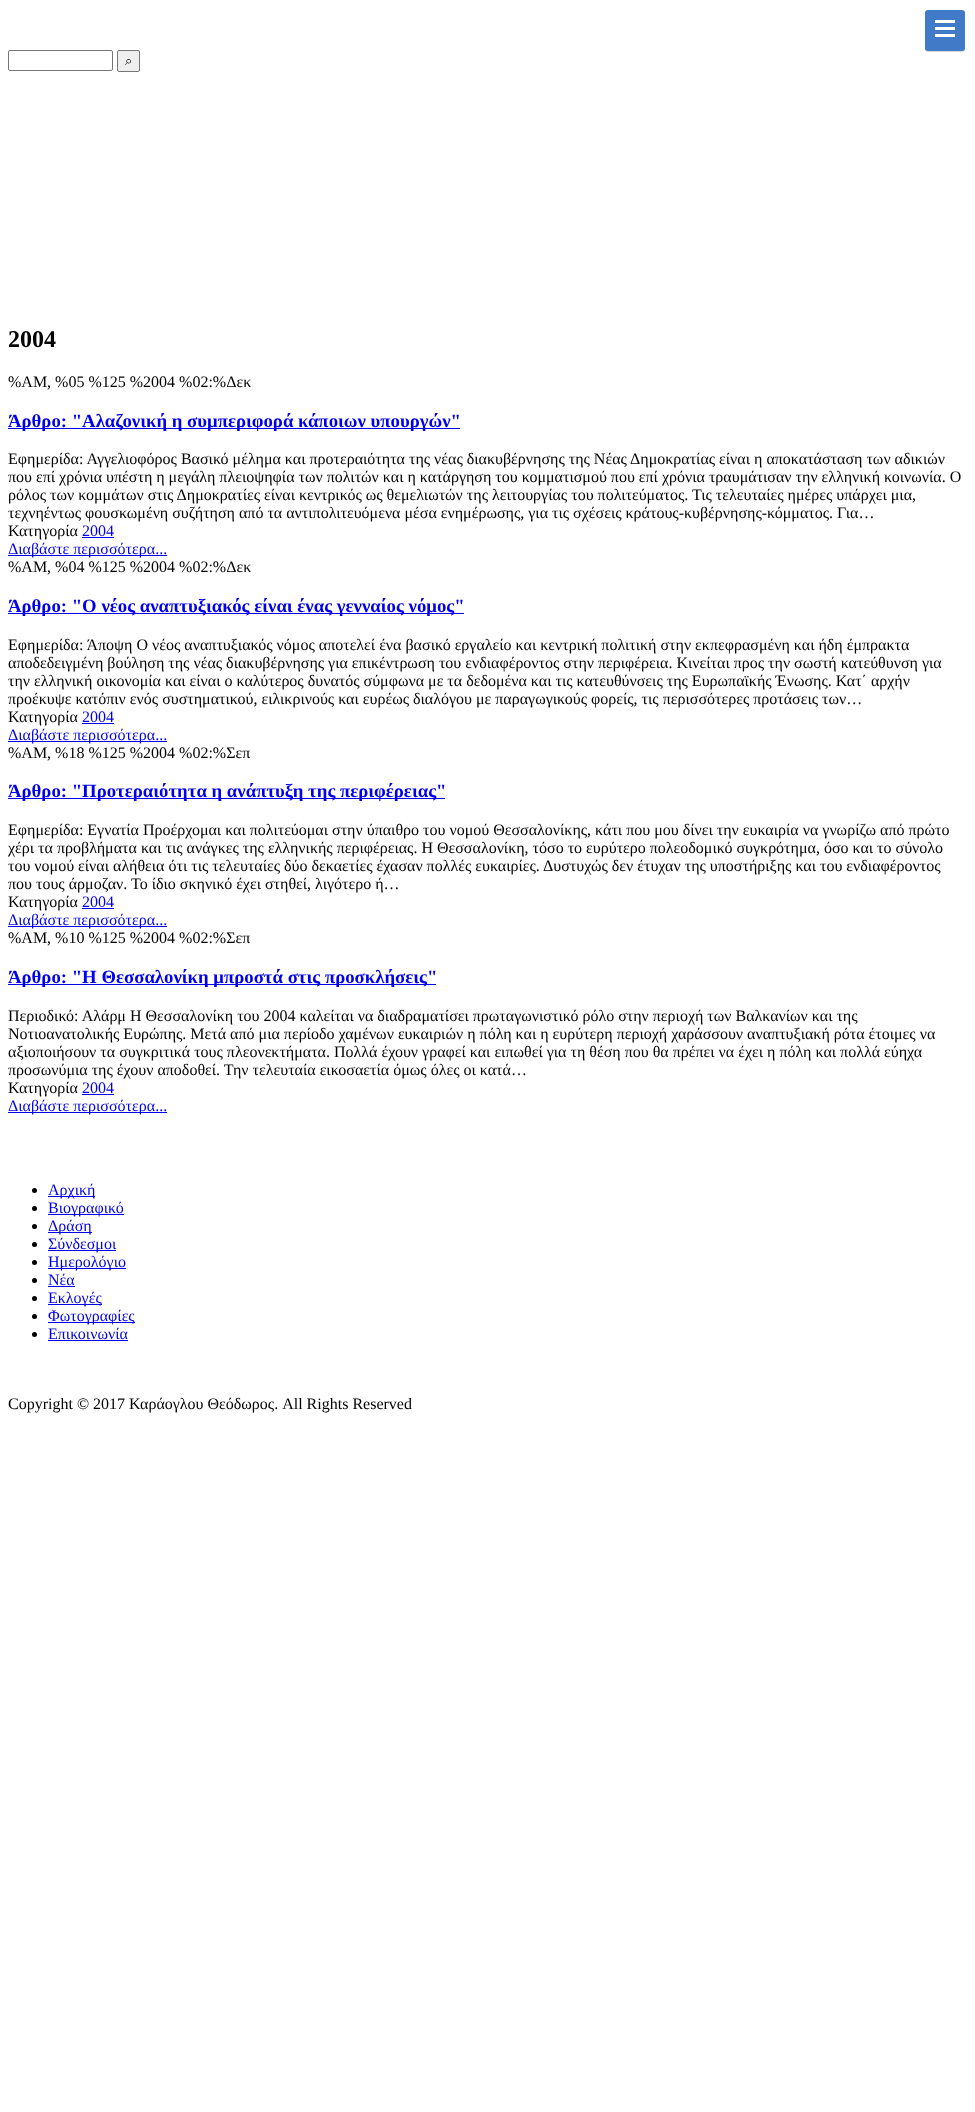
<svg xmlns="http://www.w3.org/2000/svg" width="975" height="2112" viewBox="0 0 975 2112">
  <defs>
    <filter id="blur1" x="-50%" y="-200%" width="200%" height="500%"><feGaussianBlur stdDeviation="0.5"/></filter>
  </defs>
  <rect width="100%" height="100%" fill="#ffffff"/>
  <rect x="925" y="11" width="40" height="41" rx="3" fill="#000000" fill-opacity="0.15" filter="url(#blur1)"/>
  <rect x="925" y="10" width="40" height="41" rx="3" fill="#417ac7"/>
  <rect x="935" y="20" width="20" height="3" fill="#ffffff"/>
  <rect x="935" y="27" width="20" height="3" fill="#ffffff"/>
  <rect x="935" y="34" width="20" height="3" fill="#ffffff"/>
  <rect x="8.5" y="50.5" width="104" height="20" rx="1.5" fill="none" stroke="#767676"/>
  <rect x="117.5" y="50.5" width="22" height="21" rx="1.5" fill="#efefef" stroke="#767676"/>
  <text x="125" y="65" font-family="FreeSerif" font-size="13" fill="#000000">⌕</text>
  <text x="8" y="347" font-family="Liberation Serif" font-size="24" font-weight="bold" fill="#000000">2004</text>
  <text x="8" y="387" font-family="Liberation Serif" font-size="16" fill="#000000">%AM, %05 %125 %2004 %02:%Δεκ</text>
  <rect x="8" y="428" width="452" height="1" fill="#0000ee"/>
  <text x="8" y="427" font-family="Liberation Serif" font-size="18.75" font-weight="bold" fill="#0000ee">Άρθρο: "Αλαζονική η συμπεριφορά κάποιων υπουργών"</text>
  <text x="8" y="464" font-family="Liberation Serif" font-size="16" fill="#000000">Εφημερίδα: Αγγελιοφόρος Βασικό μέλημα και προτεραιότητα της νέας διακυβέρνησης της Νέας Δημοκρατίας είναι η αποκατάσταση των αδικιών</text>
  <text x="8" y="482" font-family="Liberation Serif" font-size="16" fill="#000000">που επί χρόνια υπέστη η μεγάλη πλειοψηφία των πολιτών και η κατάργηση του κομματισμού που επί χρόνια τραυμάτισαν την ελληνική κοινωνία. Ο</text>
  <text x="8" y="500" font-family="Liberation Serif" font-size="16" fill="#000000">ρόλος των κομμάτων στις Δημοκρατίες είναι κεντρικός ως θεμελιωτών της λειτουργίας του πολιτεύματος. Τις τελευταίες ημέρες υπάρχει μια,</text>
  <text x="8" y="518" font-family="Liberation Serif" font-size="16" fill="#000000">τεχνηέντως φουσκωμένη συζήτηση από τα αντιπολιτευόμενα μέσα ενημέρωσης, για τις σχέσεις κράτους-κυβέρνησης-κόμματος. Για…</text>
  <text x="8" y="536" font-family="Liberation Serif" font-size="16" fill="#000000">Κατηγορία</text>
  <text x="82" y="536" font-family="Liberation Serif" font-size="16" fill="#0000ee">2004</text>
  <rect x="82" y="537" width="32" height="1" fill="#0000ee"/>
  <rect x="8" y="555" width="159" height="1" fill="#0000ee"/>
  <text x="8" y="554" font-family="Liberation Serif" font-size="16" fill="#0000ee">Διαβάστε περισσότερα...</text>
  <text x="8" y="572" font-family="Liberation Serif" font-size="16" fill="#000000">%AM, %04 %125 %2004 %02:%Δεκ</text>
  <rect x="8" y="613" width="456" height="1" fill="#0000ee"/>
  <text x="8" y="612" font-family="Liberation Serif" font-size="18.75" font-weight="bold" fill="#0000ee">Άρθρο: "Ο νέος αναπτυξιακός είναι ένας γενναίος νόμος"</text>
  <text x="8" y="650" font-family="Liberation Serif" font-size="16" fill="#000000">Εφημερίδα: Άποψη Ο νέος αναπτυξιακός νόμος αποτελεί ένα βασικό εργαλείο και κεντρική πολιτική στην εκπεφρασμένη και ήδη έμπρακτα</text>
  <text x="8" y="668" font-family="Liberation Serif" font-size="16" fill="#000000">αποδεδειγμένη βούληση της νέας διακυβέρνησης για επικέντρωση του ενδιαφέροντος στην περιφέρεια. Κινείται προς την σωστή κατεύθυνση για</text>
  <text x="8" y="686" font-family="Liberation Serif" font-size="16" fill="#000000">την ελληνική οικονομία και είναι ο καλύτερος δυνατός σύμφωνα με τα δεδομένα και τις κατευθύνσεις της Ευρωπαϊκής Ένωσης. Κατ΄ αρχήν</text>
  <text x="8" y="704" font-family="Liberation Serif" font-size="16" fill="#000000">προέκυψε κατόπιν ενός συστηματικού, ειλικρινούς και ευρέως διαλόγου με παραγωγικούς φορείς, τις περισσότερες προτάσεις των…</text>
  <text x="8" y="722" font-family="Liberation Serif" font-size="16" fill="#000000">Κατηγορία</text>
  <text x="82" y="722" font-family="Liberation Serif" font-size="16" fill="#0000ee">2004</text>
  <rect x="82" y="723" width="32" height="1" fill="#0000ee"/>
  <rect x="8" y="741" width="159" height="1" fill="#0000ee"/>
  <text x="8" y="740" font-family="Liberation Serif" font-size="16" fill="#0000ee">Διαβάστε περισσότερα...</text>
  <text x="8" y="758" font-family="Liberation Serif" font-size="16" fill="#000000">%AM, %18 %125 %2004 %02:%Σεπ</text>
  <rect x="8" y="798" width="437" height="1" fill="#0000ee"/>
  <text x="8" y="797" font-family="Liberation Serif" font-size="18.75" font-weight="bold" fill="#0000ee">Άρθρο: "Προτεραιότητα η ανάπτυξη της περιφέρειας"</text>
  <text x="8" y="835" font-family="Liberation Serif" font-size="16" fill="#000000">Εφημερίδα: Εγνατία Προέρχομαι και πολιτεύομαι στην ύπαιθρο του νομού Θεσσαλονίκης, κάτι που μου δίνει την ευκαιρία να γνωρίζω από πρώτο</text>
  <text x="8" y="853" font-family="Liberation Serif" font-size="16" fill="#000000">χέρι τα προβλήματα και τις ανάγκες της ελληνικής περιφέρειας. Η Θεσσαλονίκη, τόσο το ευρύτερο πολεοδομικό συγκρότημα, όσο και το σύνολο</text>
  <text x="8" y="871" font-family="Liberation Serif" font-size="16" fill="#000000">του νομού είναι αλήθεια ότι τις τελευταίες δύο δεκαετίες έχασαν πολλές ευκαιρίες. Δυστυχώς δεν έτυχαν της υποστήριξης και του ενδιαφέροντος</text>
  <text x="8" y="889" font-family="Liberation Serif" font-size="16" fill="#000000">που τους άρμοζαν. Το ίδιο σκηνικό έχει στηθεί, λιγότερο ή…</text>
  <text x="8" y="907" font-family="Liberation Serif" font-size="16" fill="#000000">Κατηγορία</text>
  <text x="82" y="907" font-family="Liberation Serif" font-size="16" fill="#0000ee">2004</text>
  <rect x="82" y="908" width="32" height="1" fill="#0000ee"/>
  <rect x="8" y="926" width="159" height="1" fill="#0000ee"/>
  <text x="8" y="925" font-family="Liberation Serif" font-size="16" fill="#0000ee">Διαβάστε περισσότερα...</text>
  <text x="8" y="943" font-family="Liberation Serif" font-size="16" fill="#000000">%AM, %10 %125 %2004 %02:%Σεπ</text>
  <rect x="8" y="984" width="428" height="1" fill="#0000ee"/>
  <text x="8" y="983" font-family="Liberation Serif" font-size="18.75" font-weight="bold" fill="#0000ee">Άρθρο: "Η Θεσσαλονίκη μπροστά στις προσκλήσεις"</text>
  <text x="8" y="1021" font-family="Liberation Serif" font-size="16" fill="#000000">Περιοδικό: Αλάρμ Η Θεσσαλονίκη του 2004 καλείται να διαδραματίσει πρωταγωνιστικό ρόλο στην περιοχή των Βαλκανίων και της</text>
  <text x="8" y="1039" font-family="Liberation Serif" font-size="16" fill="#000000">Νοτιοανατολικής Ευρώπης. Μετά από μια περίοδο χαμένων ευκαιριών η πόλη και η ευρύτερη περιοχή χαράσσουν αναπτυξιακή ρότα έτοιμες να</text>
  <text x="8" y="1057" font-family="Liberation Serif" font-size="16" fill="#000000">αξιοποιήσουν τα συγκριτικά τους πλεονεκτήματα. Πολλά έχουν γραφεί και ειπωθεί για τη θέση που θα πρέπει να έχει η πόλη και πολλά εύηχα</text>
  <text x="8" y="1075" font-family="Liberation Serif" font-size="16" fill="#000000">προσωνύμια της έχουν αποδοθεί. Την τελευταία εικοσαετία όμως όλες οι κατά…</text>
  <text x="8" y="1093" font-family="Liberation Serif" font-size="16" fill="#000000">Κατηγορία</text>
  <text x="82" y="1093" font-family="Liberation Serif" font-size="16" fill="#0000ee">2004</text>
  <rect x="82" y="1094" width="32" height="1" fill="#0000ee"/>
  <rect x="8" y="1112" width="159" height="1" fill="#0000ee"/>
  <text x="8" y="1111" font-family="Liberation Serif" font-size="16" fill="#0000ee">Διαβάστε περισσότερα...</text>
  <circle cx="34.5" cy="1190.5" r="2.5" fill="#000000"/>
  <rect x="48" y="1196" width="47" height="1" fill="#0000ee"/>
  <text x="48" y="1195" font-family="Liberation Serif" font-size="16" fill="#0000ee">Αρχική</text>
  <circle cx="34.5" cy="1208.5" r="2.5" fill="#000000"/>
  <rect x="48" y="1214" width="76" height="1" fill="#0000ee"/>
  <text x="48" y="1213" font-family="Liberation Serif" font-size="16" fill="#0000ee">Βιογραφικό</text>
  <circle cx="34.5" cy="1226.5" r="2.5" fill="#000000"/>
  <rect x="48" y="1232" width="44" height="1" fill="#0000ee"/>
  <text x="48" y="1231" font-family="Liberation Serif" font-size="16" fill="#0000ee">Δράση</text>
  <circle cx="34.5" cy="1244.5" r="2.5" fill="#000000"/>
  <rect x="48" y="1250" width="68" height="1" fill="#0000ee"/>
  <text x="48" y="1249" font-family="Liberation Serif" font-size="16" fill="#0000ee">Σύνδεσμοι</text>
  <circle cx="34.5" cy="1262.5" r="2.5" fill="#000000"/>
  <rect x="48" y="1268" width="78" height="1" fill="#0000ee"/>
  <text x="48" y="1267" font-family="Liberation Serif" font-size="16" fill="#0000ee">Ημερολόγιο</text>
  <circle cx="34.5" cy="1280.5" r="2.5" fill="#000000"/>
  <text x="48" y="1285" font-family="Liberation Serif" font-size="16" fill="#0000ee">Νέα</text>
  <rect x="48" y="1286" width="27" height="1" fill="#0000ee"/>
  <circle cx="34.5" cy="1298.5" r="2.5" fill="#000000"/>
  <rect x="48" y="1304" width="54" height="1" fill="#0000ee"/>
  <text x="48" y="1303" font-family="Liberation Serif" font-size="16" fill="#0000ee">Εκλογές</text>
  <circle cx="34.5" cy="1316.5" r="2.5" fill="#000000"/>
  <rect x="48" y="1322" width="87" height="1" fill="#0000ee"/>
  <text x="48" y="1321" font-family="Liberation Serif" font-size="16" fill="#0000ee">Φωτογραφίες</text>
  <circle cx="34.5" cy="1334.5" r="2.5" fill="#000000"/>
  <text x="48" y="1339" font-family="Liberation Serif" font-size="16" fill="#0000ee">Επικοινωνία</text>
  <rect x="48" y="1340" width="80" height="1" fill="#0000ee"/>
  <text x="8" y="1409" font-family="Liberation Serif" font-size="16" fill="#000000">Copyright © 2017 Καράογλου Θεόδωρος. All Rights Reserved</text>
</svg>
